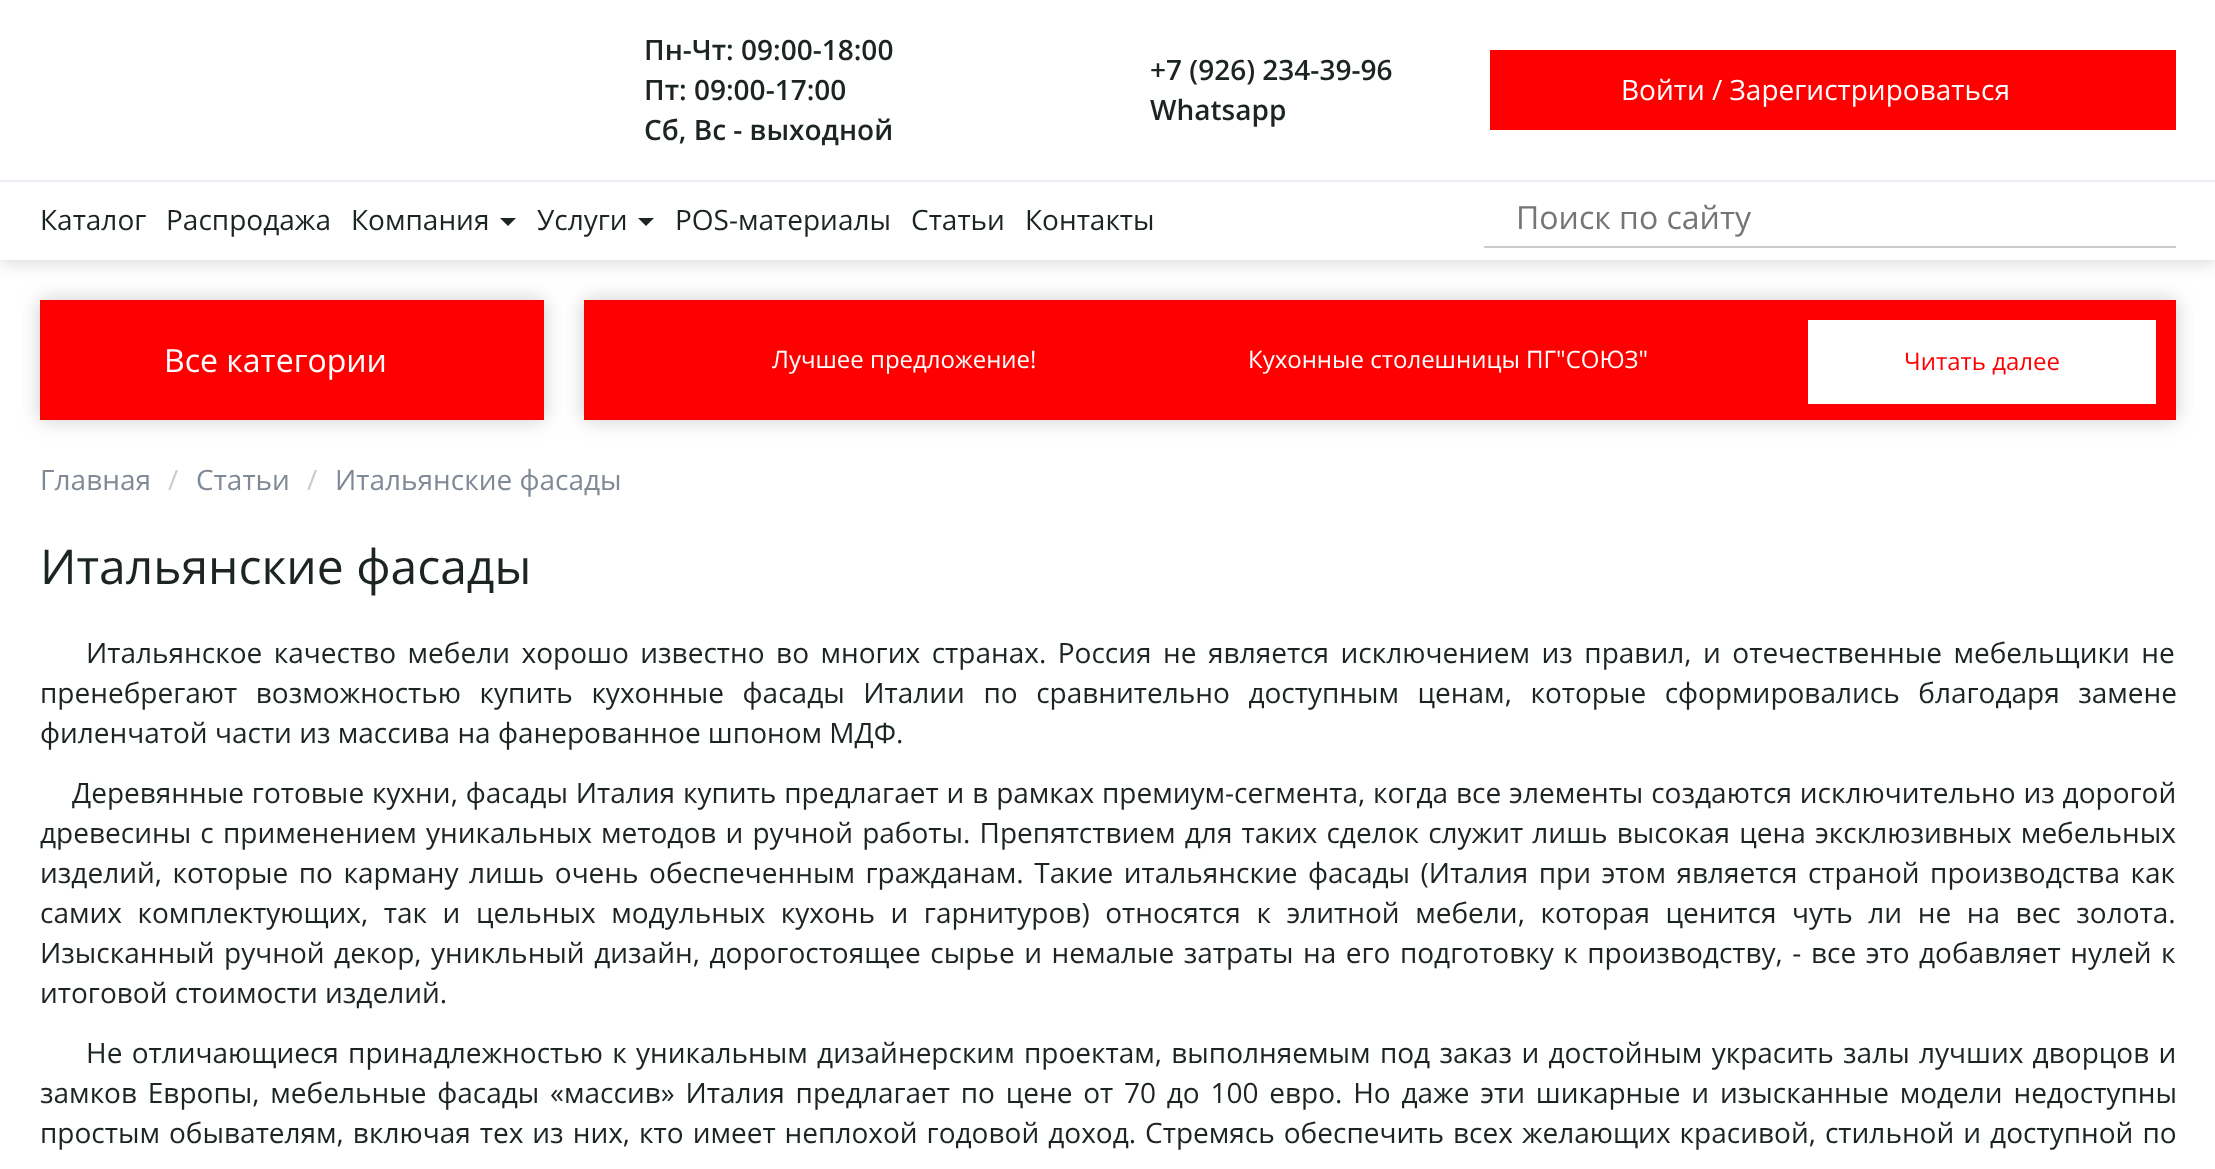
<svg xmlns="http://www.w3.org/2000/svg" width="2215" height="1169" viewBox="0 0 2215 1169">
  <defs>
    <clipPath id="clip1"><rect x="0" y="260" width="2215" height="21"/></clipPath>
    <filter id="blur1" x="-50%" y="-200%" width="200%" height="500%"><feGaussianBlur stdDeviation="10"/></filter>
  </defs>
  <rect width="100%" height="100%" fill="#ffffff"/>
  <g clip-path="url(#clip1)">
    <rect x="0" y="0" width="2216" height="260" fill="#cccccc" filter="url(#blur1)"/>
  </g>
  <rect x="0" y="180" width="2215" height="2" fill="#e9eef5"/>
  <text x="644" y="60" font-family="Open Sans" font-size="28" font-weight="600" fill="#1d2522">Пн-Чт: 09:00-18:00</text>
  <text x="644" y="100" font-family="Open Sans" font-size="28" font-weight="600" fill="#1d2522">Пт: 09:00-17:00</text>
  <text x="644" y="140" font-family="Open Sans" font-size="28" font-weight="600" fill="#1d2522">Сб, Вс - выходной</text>
  <text x="1150" y="80" font-family="Open Sans" font-size="28" font-weight="600" fill="#1d2522">+7 (926) 234-39-96</text>
  <text x="1150" y="120" font-family="Open Sans" font-size="28" font-weight="600" fill="#1d2522">Whatsapp</text>
  <rect x="1490" y="50" width="686" height="80" fill="#ff0000"/>
  <text x="1621" y="100" font-family="Open Sans" font-size="28" fill="#ffffff">Войти / Зарегистрироваться</text>
  <text x="40" y="230" font-family="Open Sans" font-size="28" fill="#1d2522">Каталог</text>
  <text x="166" y="230" font-family="Open Sans" font-size="28" fill="#1d2522">Распродажа</text>
  <text x="351" y="230" font-family="Open Sans" font-size="28" fill="#1d2522">Компания</text>
  <path d="M500 218H516L508 226Z" fill="#1d2522"/>
  <text x="537" y="230" font-family="Open Sans" font-size="28" fill="#1d2522">Услуги</text>
  <path d="M638 218H654L646 226Z" fill="#1d2522"/>
  <text x="675" y="230" font-family="Open Sans" font-size="28" fill="#1d2522">POS-материалы</text>
  <text x="911" y="230" font-family="Open Sans" font-size="28" fill="#1d2522">Статьи</text>
  <text x="1025" y="230" font-family="Open Sans" font-size="28" fill="#1d2522">Контакты</text>
  <rect x="1484" y="246" width="692" height="2" fill="#cccccc"/>
  <text x="1516" y="229" font-family="Open Sans" font-size="32" fill="#757575">Поиск по сайту</text>
  <rect x="40" y="300" width="504" height="120" fill="#cccccc" filter="url(#blur1)"/>
  <rect x="40" y="300" width="504" height="120" fill="#ff0000"/>
  <text x="164" y="372" font-family="Open Sans" font-size="32" fill="#ffffff">Все категории</text>
  <rect x="584" y="300" width="1592" height="120" fill="#cccccc" filter="url(#blur1)"/>
  <rect x="584" y="300" width="1592" height="120" fill="#ff0000"/>
  <text x="772" y="368" font-family="Open Sans" font-size="24" fill="#ffffff">Лучшее предложение!</text>
  <text x="1248" y="368" font-family="Open Sans" font-size="24" fill="#ffffff">Кухонные столешницы ПГ"СОЮЗ"</text>
  <rect x="1808" y="320" width="348" height="84" fill="#ffffff"/>
  <text x="1904" y="370" font-family="Open Sans" font-size="24" fill="#ff0000">Читать далее</text>
  <text x="40" y="490" font-family="Open Sans" font-size="28" fill="#808a97">Главная</text>
  <text x="168" y="490" font-family="Open Sans" font-size="28" fill="#cccccc">/</text>
  <text x="196" y="490" font-family="Open Sans" font-size="28" fill="#808a97">Статьи</text>
  <text x="307" y="490" font-family="Open Sans" font-size="28" fill="#cccccc">/</text>
  <text x="335" y="490" font-family="Open Sans" font-size="28" fill="#808a97">Итальянские фасады</text>
  <text x="40" y="584" font-family="Open Sans" font-size="48" fill="#1d2522">Итальянские фасады</text>
  <text x="86" y="663" word-spacing="4.25" font-family="Open Sans" font-size="28" fill="#1d2522">Итальянское качество мебели хорошо известно во многих странах. Россия не является исключением из правил, и отечественные мебельщики не</text>
  <text x="40" y="703" word-spacing="11.25" font-family="Open Sans" font-size="28" fill="#1d2522">пренебрегают возможностью купить кухонные фасады Италии по сравнительно доступным ценам, которые сформировались благодаря замене</text>
  <text x="40" y="743" font-family="Open Sans" font-size="28" fill="#1d2522">филенчатой части из массива на фанерованное шпоном МДФ.</text>
  <text x="72" y="803" word-spacing="0.6" font-family="Open Sans" font-size="28" fill="#1d2522">Деревянные готовые кухни, фасады Италия купить предлагает и в рамках премиум-сегмента, когда все элементы создаются исключительно из дорогой</text>
  <text x="40" y="843" word-spacing="1.9" font-family="Open Sans" font-size="28" fill="#1d2522">древесины с применением уникальных методов и ручной работы. Препятствием для таких сделок служит лишь высокая цена эксклюзивных мебельных</text>
  <text x="40" y="883" word-spacing="3.25" font-family="Open Sans" font-size="28" fill="#1d2522">изделий, которые по карману лишь очень обеспеченным гражданам. Такие итальянские фасады (Италия при этом является страной производства как</text>
  <text x="40" y="923" word-spacing="8.3" font-family="Open Sans" font-size="28" fill="#1d2522">самих комплектующих, так и цельных модульных кухонь и гарнитуров) относятся к элитной мебели, которая ценится чуть ли не на вес золота.</text>
  <text x="40" y="963" word-spacing="2.25" font-family="Open Sans" font-size="28" fill="#1d2522">Изысканный ручной декор, уникльный дизайн, дорогостоящее сырье и немалые затраты на его подготовку к производству, - все это добавляет нулей к</text>
  <text x="40" y="1003" font-family="Open Sans" font-size="28" fill="#1d2522">итоговой стоимости изделий.</text>
  <text x="86" y="1063" word-spacing="2" font-family="Open Sans" font-size="28" fill="#1d2522">Не отличающиеся принадлежностью к уникальным дизайнерским проектам, выполняемым под заказ и достойным украсить залы лучших дворцов и</text>
  <text x="40" y="1103" word-spacing="3.5" font-family="Open Sans" font-size="28" fill="#1d2522">замков Европы, мебельные фасады «массив» Италия предлагает по цене от 70 до 100 евро. Но даже эти шикарные и изысканные модели недоступны</text>
  <text x="40" y="1143" word-spacing="1.75" font-family="Open Sans" font-size="28" fill="#1d2522">простым обывателям, включая тех из них, кто имеет неплохой годовой доход. Стремясь обеспечить всех желающих красивой, стильной и доступной по</text>
</svg>
